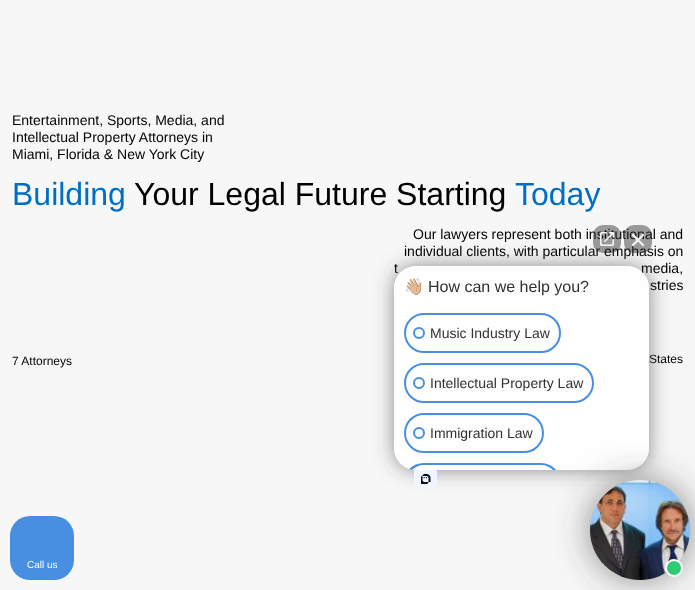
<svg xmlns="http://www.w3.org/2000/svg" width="695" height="590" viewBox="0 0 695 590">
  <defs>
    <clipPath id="clip1"><path d="M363 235H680V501H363ZM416 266H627C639 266 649 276 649 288V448C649 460 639 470 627 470H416C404 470 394 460 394 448V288C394 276 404 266 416 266Z" clip-rule="evenodd"/></clipPath>
    <filter id="blur1" x="-50%" y="-200%" width="200%" height="500%"><feGaussianBlur stdDeviation="10"/></filter>
    <clipPath id="clip2"><rect x="394" y="266" width="255" height="204" rx="20"/></clipPath>
    <filter id="blur2" x="-50%" y="-200%" width="200%" height="500%"><feGaussianBlur stdDeviation="17.5"/></filter>
  </defs>
  <rect width="100%" height="100%" fill="#f7f7f7"/>
  <text x="12" y="125" font-family="Liberation Sans" font-size="14" fill="#000000">Entertainment, Sports, Media, and</text>
  <text x="12" y="142" font-family="Liberation Sans" font-size="14" fill="#000000">Intellectual Property Attorneys in</text>
  <text x="12" y="159" font-family="Liberation Sans" font-size="14" fill="#000000">Miami, Florida &amp; New York City</text>
  <text x="12" y="205" font-family="Liberation Sans" font-size="32" fill="#006ec5">Building</text>
  <text x="134" y="205" font-family="Liberation Sans" font-size="32" fill="#000000">Your Legal Future Starting</text>
  <text x="515" y="205" font-family="Liberation Sans" font-size="32" fill="#006ec5">Today</text>
  <text x="413" y="239" font-family="Liberation Sans" font-size="14" fill="#000000">Our lawyers represent both institutional and</text>
  <text x="404" y="256" font-family="Liberation Sans" font-size="14" fill="#000000">individual clients, with particular emphasis on</text>
  <text x="394" y="273" font-family="Liberation Sans" font-size="14" fill="#000000">t</text>
  <text x="641" y="273" font-family="Liberation Sans" font-size="14" fill="#000000">media,</text>
  <text x="650" y="290" font-family="Liberation Sans" font-size="14" fill="#000000">stries</text>
  <text x="12" y="365" font-family="Liberation Sans" font-size="12" fill="#000000">7 Attorneys</text>
  <text x="649" y="363" font-family="Liberation Sans" font-size="12" fill="#000000">States</text>
  <g clip-path="url(#clip1)">
    <rect x="394" y="266" width="255" height="204" rx="22" fill="#3c3c3c" fill-opacity="0.6" filter="url(#blur1)"/>
  </g>
  <rect x="394" y="266" width="255" height="204" rx="22" fill="#ffffff" fill-opacity="0.85"/>
  <rect x="593" y="225" width="28" height="28" rx="10" fill="#272727" fill-opacity="0.45"/>
  <image x="600" y="232" width="14" height="14" href="img1.png"/>
  <rect x="624" y="225" width="28" height="28" rx="10" fill="#272727" fill-opacity="0.45"/>
  <path d="M631.5 235L633 233.5L644.5 245L643 246.5Z" fill="#f5f5f5"/>
  <path d="M643 233.5L644.5 235L633 246.5L631.5 245Z" fill="#f5f5f5"/>
  <text x="404" y="292" font-family="Noto Color Emoji" font-size="16" fill="#313131">👋🏼</text>
  <text x="428" y="292" font-family="Liberation Sans" font-size="16" fill="#313131">How can we help you?</text>
  <rect x="405" y="314" width="155" height="38" rx="19" fill="none" stroke="#498fe1" stroke-width="2"/>
  <circle cx="419" cy="333" r="5" fill="none" stroke="#498fe1" stroke-width="2"/>
  <text x="430" y="338" font-family="Liberation Sans" font-size="14" fill="#313131">Music Industry Law</text>
  <rect x="405" y="364" width="188" height="38" rx="19" fill="none" stroke="#498fe1" stroke-width="2"/>
  <circle cx="419" cy="383" r="5" fill="none" stroke="#498fe1" stroke-width="2"/>
  <text x="430" y="388" font-family="Liberation Sans" font-size="14" fill="#313131">Intellectual Property Law</text>
  <rect x="405" y="414" width="138" height="38" rx="19" fill="none" stroke="#498fe1" stroke-width="2"/>
  <circle cx="419" cy="433" r="5" fill="none" stroke="#498fe1" stroke-width="2"/>
  <text x="430" y="438" font-family="Liberation Sans" font-size="14" fill="#313131">Immigration Law</text>
  <g clip-path="url(#clip2)">
    <path d="M424 463H541C552 463 561 472 561 483V470H404V483C404 472 413 463 424 463Z" fill="#ffffff" fill-opacity="0.85"/>
  </g>
  <path d="M424 463C418 463 413 465 409 469L412 470C415 467 419 465 424 465H541C546 465 550 467 553 470H556C553 466 547 463 541 463Z" fill="#498fe1"/>
  <image x="414" y="470" width="23" height="18" href="img2.png"/>
  <rect x="590" y="480" width="100" height="100" rx="50" fill="#3c3c3c" fill-opacity="0.6" filter="url(#blur2)"/>
  <image x="590" y="480" width="100" height="100" href="img3.png"/>
  <circle cx="674" cy="568" r="8" fill="#2ecc71" stroke="#ffffff" stroke-width="2"/>
  <rect x="10" y="516" width="64" height="64" rx="20" fill="#498fe1"/>
  <text x="27" y="568" font-family="Liberation Sans" font-size="10" fill="#ffffff">Call us</text>
</svg>
